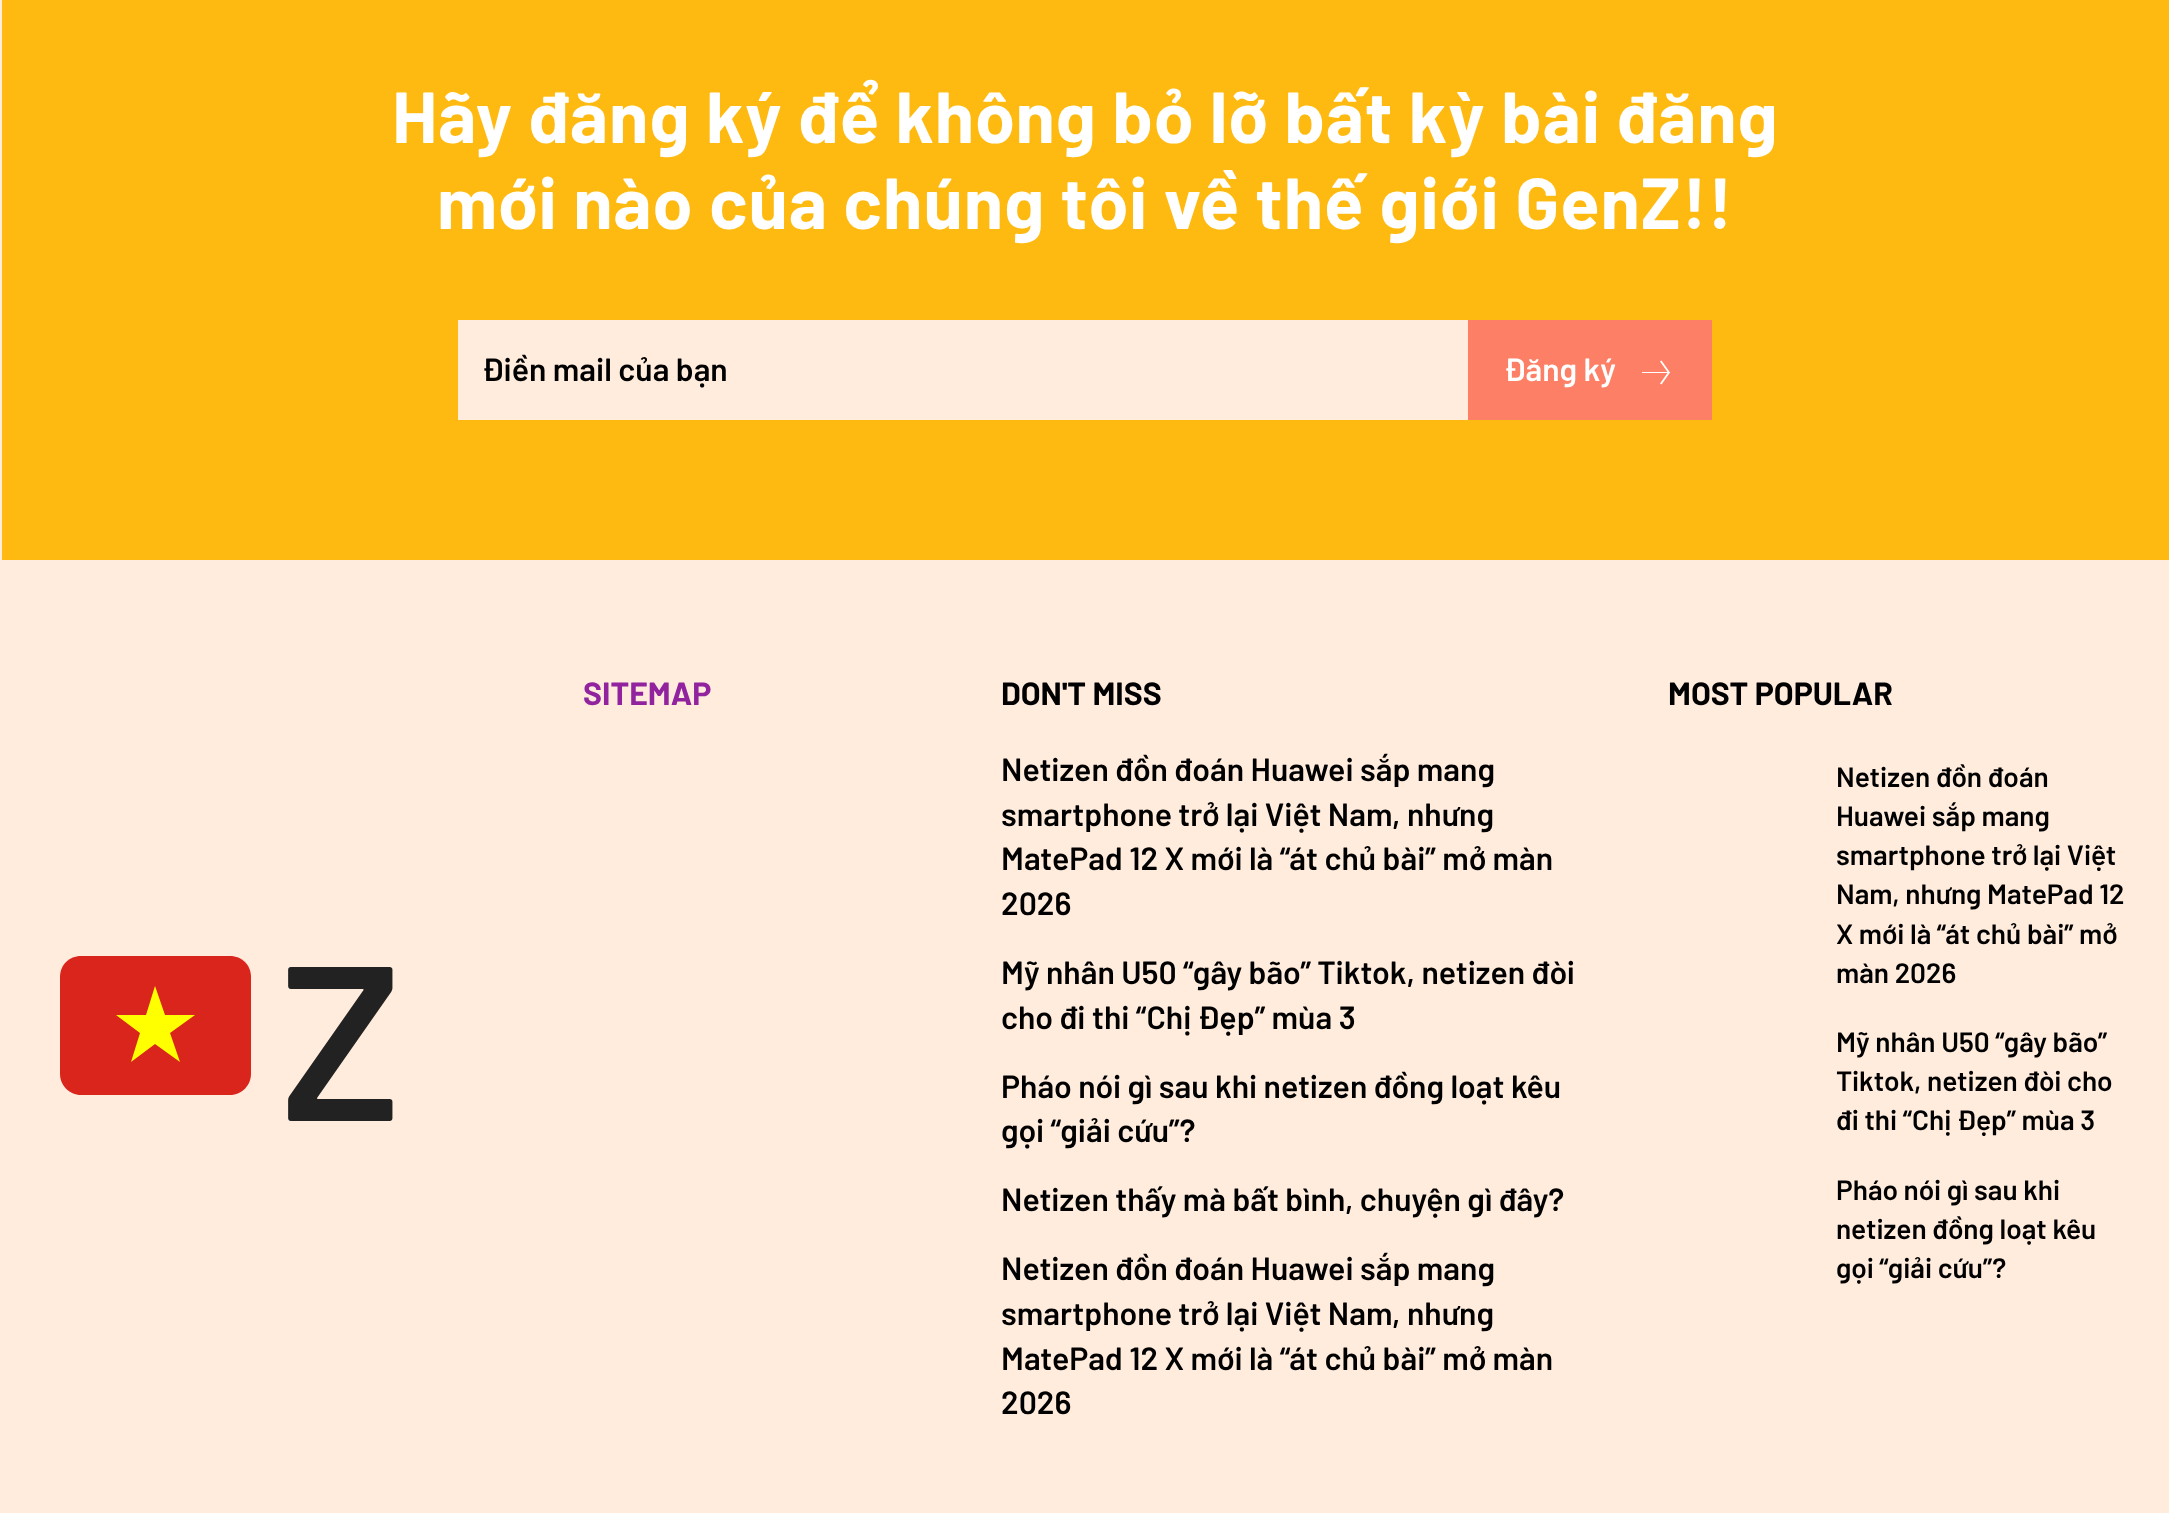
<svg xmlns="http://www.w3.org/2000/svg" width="2169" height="1513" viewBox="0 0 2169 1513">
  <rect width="100%" height="100%" fill="#ffecdd"/>
  <rect x="2" y="0" width="2167" height="560" fill="#ffba12"/>
  <text x="392" y="143" font-family="Barlow" font-size="72" font-weight="bold" letter-spacing="1" fill="#ffffff">Hãy đăng ký để không bỏ lỡ bất kỳ bài đăng</text>
  <text x="437" y="229" font-family="Barlow" font-size="72" font-weight="bold" letter-spacing="1" fill="#ffffff">mới nào của chúng tôi về thế giới GenZ!!</text>
  <rect x="458" y="320" width="1010" height="100" fill="#ffecdd"/>
  <text x="482" y="381" font-family="Barlow" font-size="32" font-weight="600" fill="#000000">Điền mail của bạn</text>
  <rect x="1468" y="320" width="244" height="100" fill="#fd7f65"/>
  <text x="1504" y="381" font-family="Barlow" font-size="32" font-weight="600" fill="#ffffff">Đăng ký</text>
  <path d="M1660 383.5L1661.5 384.5L1670 372.5L1661.5 360.5L1660 361.5L1667.5 372H1642V373H1667.5Z" fill="#ffffff"/>
  <path d="M230 956H81C69 956 60 965 60 977V1074C60 1085 69 1095 81 1095H230C242 1095 251 1085 251 1074V977C251 965 242 956 230 956Z" fill="#da251d"/>
  <path d="M165 1015L155 986L146 1015H116L140 1033L131 1062L155 1044L180 1062L170 1033L195 1015Z" fill="#ffff00"/>
  <text x="280" y="1121" font-family="Barlow" font-size="220" font-weight="600" fill="#222222">Z</text>
  <text x="583" y="705" font-family="Barlow" font-size="32" font-weight="bold" fill="#91239f">SITEMAP</text>
  <text x="1001" y="705" font-family="Barlow" font-size="32" font-weight="bold" fill="#000000">DON'T MISS</text>
  <text x="1001" y="781" font-family="Barlow" font-size="32" font-weight="600" fill="#000000">Netizen đồn đoán Huawei sắp mang</text>
  <text x="1001" y="826" font-family="Barlow" font-size="32" font-weight="600" fill="#000000">smartphone trở lại Việt Nam, nhưng</text>
  <text x="1001" y="870" font-family="Barlow" font-size="32" font-weight="600" fill="#000000">MatePad 12 X mới là “át chủ bài” mở màn</text>
  <text x="1001" y="915" font-family="Barlow" font-size="32" font-weight="600" fill="#000000">2026</text>
  <text x="1001" y="984" font-family="Barlow" font-size="32" font-weight="600" fill="#000000">Mỹ nhân U50 “gây bão” Tiktok, netizen đòi</text>
  <text x="1001" y="1029" font-family="Barlow" font-size="32" font-weight="600" fill="#000000">cho đi thi “Chị Đẹp” mùa 3</text>
  <text x="1001" y="1098" font-family="Barlow" font-size="32" font-weight="600" fill="#000000">Pháo nói gì sau khi netizen đồng loạt kêu</text>
  <text x="1001" y="1142" font-family="Barlow" font-size="32" font-weight="600" fill="#000000">gọi “giải cứu”?</text>
  <text x="1001" y="1211" font-family="Barlow" font-size="32" font-weight="600" fill="#000000">Netizen thấy mà bất bình, chuyện gì đây?</text>
  <text x="1001" y="1280" font-family="Barlow" font-size="32" font-weight="600" fill="#000000">Netizen đồn đoán Huawei sắp mang</text>
  <text x="1001" y="1325" font-family="Barlow" font-size="32" font-weight="600" fill="#000000">smartphone trở lại Việt Nam, nhưng</text>
  <text x="1001" y="1370" font-family="Barlow" font-size="32" font-weight="600" fill="#000000">MatePad 12 X mới là “át chủ bài” mở màn</text>
  <text x="1001" y="1414" font-family="Barlow" font-size="32" font-weight="600" fill="#000000">2026</text>
  <text x="1668" y="705" font-family="Barlow" font-size="32" font-weight="bold" fill="#000000">MOST POPULAR</text>
  <text x="1836" y="787" font-family="Barlow" font-size="28" font-weight="600" fill="#000000">Netizen đồn đoán</text>
  <text x="1836" y="826" font-family="Barlow" font-size="28" font-weight="600" fill="#000000">Huawei sắp mang</text>
  <text x="1836" y="865" font-family="Barlow" font-size="28" font-weight="600" fill="#000000">smartphone trở lại Việt</text>
  <text x="1836" y="904" font-family="Barlow" font-size="28" font-weight="600" fill="#000000">Nam, nhưng MatePad 12</text>
  <text x="1836" y="944" font-family="Barlow" font-size="28" font-weight="600" fill="#000000">X mới là “át chủ bài” mở</text>
  <text x="1836" y="983" font-family="Barlow" font-size="28" font-weight="600" fill="#000000">màn 2026</text>
  <text x="1836" y="1052" font-family="Barlow" font-size="28" font-weight="600" fill="#000000">Mỹ nhân U50 “gây bão”</text>
  <text x="1836" y="1091" font-family="Barlow" font-size="28" font-weight="600" fill="#000000">Tiktok, netizen đòi cho</text>
  <text x="1836" y="1130" font-family="Barlow" font-size="28" font-weight="600" fill="#000000">đi thi “Chị Đẹp” mùa 3</text>
  <text x="1836" y="1200" font-family="Barlow" font-size="28" font-weight="600" fill="#000000">Pháo nói gì sau khi</text>
  <text x="1836" y="1239" font-family="Barlow" font-size="28" font-weight="600" fill="#000000">netizen đồng loạt kêu</text>
  <text x="1836" y="1278" font-family="Barlow" font-size="28" font-weight="600" fill="#000000">gọi “giải cứu”?</text>
</svg>
